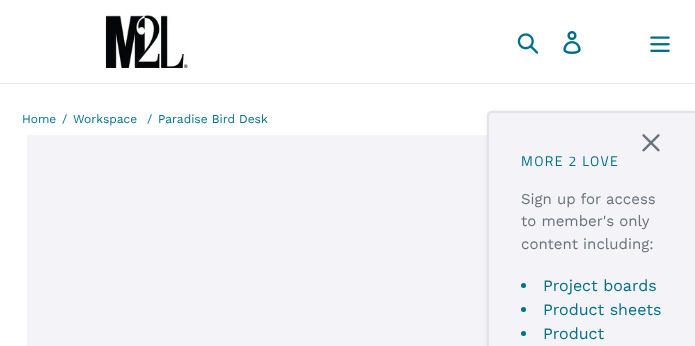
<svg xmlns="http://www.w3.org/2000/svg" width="695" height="346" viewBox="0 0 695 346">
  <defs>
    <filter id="blur1" x="-50%" y="-200%" width="200%" height="500%"><feGaussianBlur stdDeviation="2.5"/></filter>
  </defs>
  <rect width="100%" height="100%" fill="#ffffff"/>
  <rect x="0" y="83" width="695" height="1" fill="#e8e9eb"/>
  <image x="105" y="15" width="83" height="53" href="img1.png"/>
  <image x="517" y="33" width="22" height="21" href="img2.png"/>
  <image x="563" y="31" width="18" height="23" href="img3.png"/>
  <image x="650" y="36" width="20" height="16" href="img4.png"/>
  <text x="22" y="123" font-family="Work Sans" font-size="12" fill="#026f89">Home</text>
  <text x="62" y="123" font-family="Work Sans" font-size="12" fill="#026f89">/</text>
  <text x="73" y="123" font-family="Work Sans" font-size="12" fill="#026f89">Workspace</text>
  <text x="147" y="123" font-family="Work Sans" font-size="12" fill="#026f89">/</text>
  <text x="158" y="123" font-family="Work Sans" font-size="12" fill="#026f89">Paradise Bird Desk</text>
  <rect x="27" y="135" width="460" height="211" fill="#f3f3f8"/>
  <rect x="488" y="112" width="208" height="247" rx="5" fill="#000000" fill-opacity="0.1" filter="url(#blur1)"/>
  <path d="M492 111H695V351H492C489 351 487 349 487 346V116C487 113 489 111 492 111Z" fill="#f3f3f8"/>
  <path d="M492 111H695V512H492C489 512 487 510 487 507V116C487 113 489 111 492 111ZM492 113H695V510H492C490 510 489 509 489 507V116C489 114 490 113 492 113Z" fill="#e3e3e5" fill-rule="evenodd"/>
  <image x="642" y="134" width="18" height="18" href="img5.png"/>
  <text x="521" y="166" font-family="Titillium Web" font-size="14" letter-spacing="1.4" fill="#026f89">MORE 2 LOVE</text>
  <text x="521" y="204" font-family="Work Sans" font-size="15" fill="#69727b">Sign up for access</text>
  <text x="521" y="226" font-family="Work Sans" font-size="15" fill="#69727b">to member's only</text>
  <text x="521" y="249" font-family="Work Sans" font-size="15" fill="#69727b">content including:</text>
  <circle cx="523.5" cy="285.5" r="2.5" fill="#026f89"/>
  <text x="543" y="291" font-family="Work Sans" font-size="16" fill="#026f89">Project boards</text>
  <circle cx="523.5" cy="309.5" r="2.5" fill="#026f89"/>
  <text x="543" y="315" font-family="Work Sans" font-size="16" fill="#026f89">Product sheets</text>
  <circle cx="523.5" cy="333.5" r="2.5" fill="#026f89"/>
  <text x="543" y="339" font-family="Work Sans" font-size="16" fill="#026f89">Product</text>
</svg>
